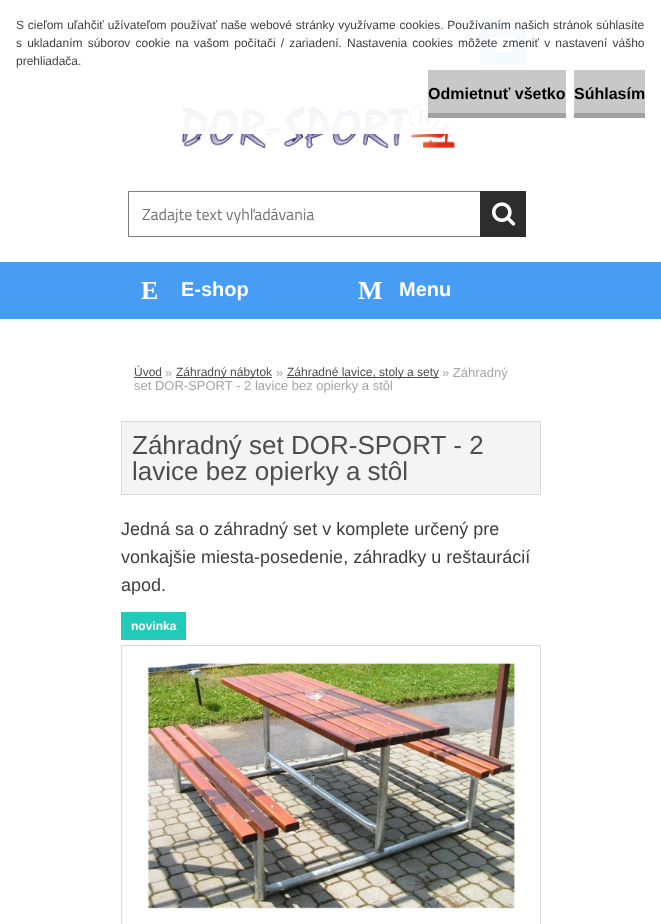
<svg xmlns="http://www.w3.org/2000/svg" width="661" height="924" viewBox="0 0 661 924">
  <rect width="100%" height="100%" fill="#ffffff"/>
  <image x="182" y="103" width="274" height="46" href="img1.png"/>
  <rect x="480" y="19" width="46" height="46" fill="#479cf3"/>
  <image x="491" y="28" width="24" height="24" href="img3.png"/>
  <rect x="182" y="19" width="344" height="115" fill="#ffffff" fill-opacity="0.95"/>
  <text x="16" y="29" word-spacing="0.5" font-family="Liberation Sans" font-size="12" fill="#3f3f3f">S cieľom uľahčiť užívateľom používať naše webové stránky využívame cookies. Používaním našich stránok súhlasíte</text>
  <text x="16" y="47" word-spacing="1.8" font-family="Liberation Sans" font-size="12" fill="#3f3f3f">s ukladaním súborov cookie na vašom počítači / zariadení. Nastavenia cookies môžete zmeniť v nastavení vášho</text>
  <text x="16" y="65" font-family="Liberation Sans" font-size="12" fill="#3f3f3f">prehliadača.</text>
  <rect x="428" y="70" width="138" height="43" fill="#c8c8c8"/>
  <rect x="428" y="113" width="138" height="5" fill="#a0a0a0"/>
  <text x="428" y="99" font-family="Liberation Sans" font-size="16" font-weight="bold" fill="#000000">Odmietnuť všetko</text>
  <rect x="574" y="70" width="71" height="43" fill="#c8c8c8"/>
  <rect x="574" y="113" width="71" height="5" fill="#a0a0a0"/>
  <text x="574" y="99" font-family="Liberation Sans" font-size="16" font-weight="bold" fill="#000000">Súhlasím</text>
  <rect x="0" y="262" width="661" height="57" fill="#479cf3"/>
  <path d="M128 191H480V192H129Z" fill="#808080"/>
  <path d="M480 237H128L129 236H480Z" fill="#808080"/>
  <path d="M128 237V191L129 192V236Z" fill="#000000" fill-opacity="0.5"/>
  <text x="142" y="220" font-family="Titillium Web" font-size="16" fill="#757575">Zadajte text vyhľadávania</text>
  <rect x="480" y="191" width="46" height="46" fill="#2d2d2d"/>
  <image x="492" y="202" width="24" height="24" href="img2.png"/>
  <text x="141" y="299" font-family="Liberation Serif" font-size="26" font-weight="bold" fill="#ffffff">E</text>
  <text x="181" y="296" font-family="Liberation Sans" font-size="20" font-weight="bold" fill="#ffffff">E-shop</text>
  <text x="358" y="299" font-family="Liberation Serif" font-size="26" font-weight="bold" fill="#ffffff">M</text>
  <text x="399" y="296" font-family="Liberation Sans" font-size="20" font-weight="bold" fill="#ffffff">Menu</text>
  <text x="134" y="376" font-family="Liberation Sans" font-size="12" fill="#4d4d4d">Úvod</text>
  <rect x="134" y="377" width="28" height="1" fill="#4d4d4d"/>
  <text x="165" y="377" font-family="Liberation Sans" font-size="13" fill="#a5a5a5">»</text>
  <rect x="176" y="377" width="96" height="1" fill="#4d4d4d"/>
  <text x="176" y="376" font-family="Liberation Sans" font-size="12" fill="#4d4d4d">Záhradný nábytok</text>
  <text x="276" y="377" font-family="Liberation Sans" font-size="13" fill="#a5a5a5">»</text>
  <rect x="287" y="377" width="152" height="1" fill="#4d4d4d"/>
  <text x="287" y="376" font-family="Liberation Sans" font-size="12" fill="#4d4d4d">Záhradné lavice, stoly a sety</text>
  <text x="442" y="377" font-family="Liberation Sans" font-size="13" fill="#a5a5a5">» Záhradný</text>
  <text x="134" y="390" font-family="Liberation Sans" font-size="13" fill="#a5a5a5">set DOR-SPORT - 2 lavice bez opierky a stôl</text>
  <rect x="121.5" y="421.5" width="419" height="73" fill="#f4f4f4" stroke="#d9d9d9"/>
  <text x="132" y="454" font-family="Liberation Sans" font-size="26" fill="#4d4d4d">Záhradný set DOR-SPORT - 2</text>
  <text x="132" y="480" font-family="Liberation Sans" font-size="26" fill="#4d4d4d">lavice bez opierky a stôl</text>
  <text x="121" y="535" font-family="Liberation Sans" font-size="18" fill="#3f3f3f">Jedná sa o záhradný set v komplete určený pre</text>
  <text x="121" y="563" font-family="Liberation Sans" font-size="18" fill="#3f3f3f">vonkajšie miesta-posedenie, záhradky u reštaurácií</text>
  <text x="121" y="591" font-family="Liberation Sans" font-size="18" fill="#3f3f3f">apod.</text>
  <rect x="121" y="612" width="65" height="28" fill="#20cbb9"/>
  <text x="131" y="630" font-family="Liberation Sans" font-size="12" font-weight="bold" fill="#ffffff">novinka</text>
  <rect x="121.5" y="645.5" width="419" height="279" fill="none" stroke="#d9d9d9"/>
  <image x="147" y="657" width="368" height="257" href="img4.png"/>
</svg>
